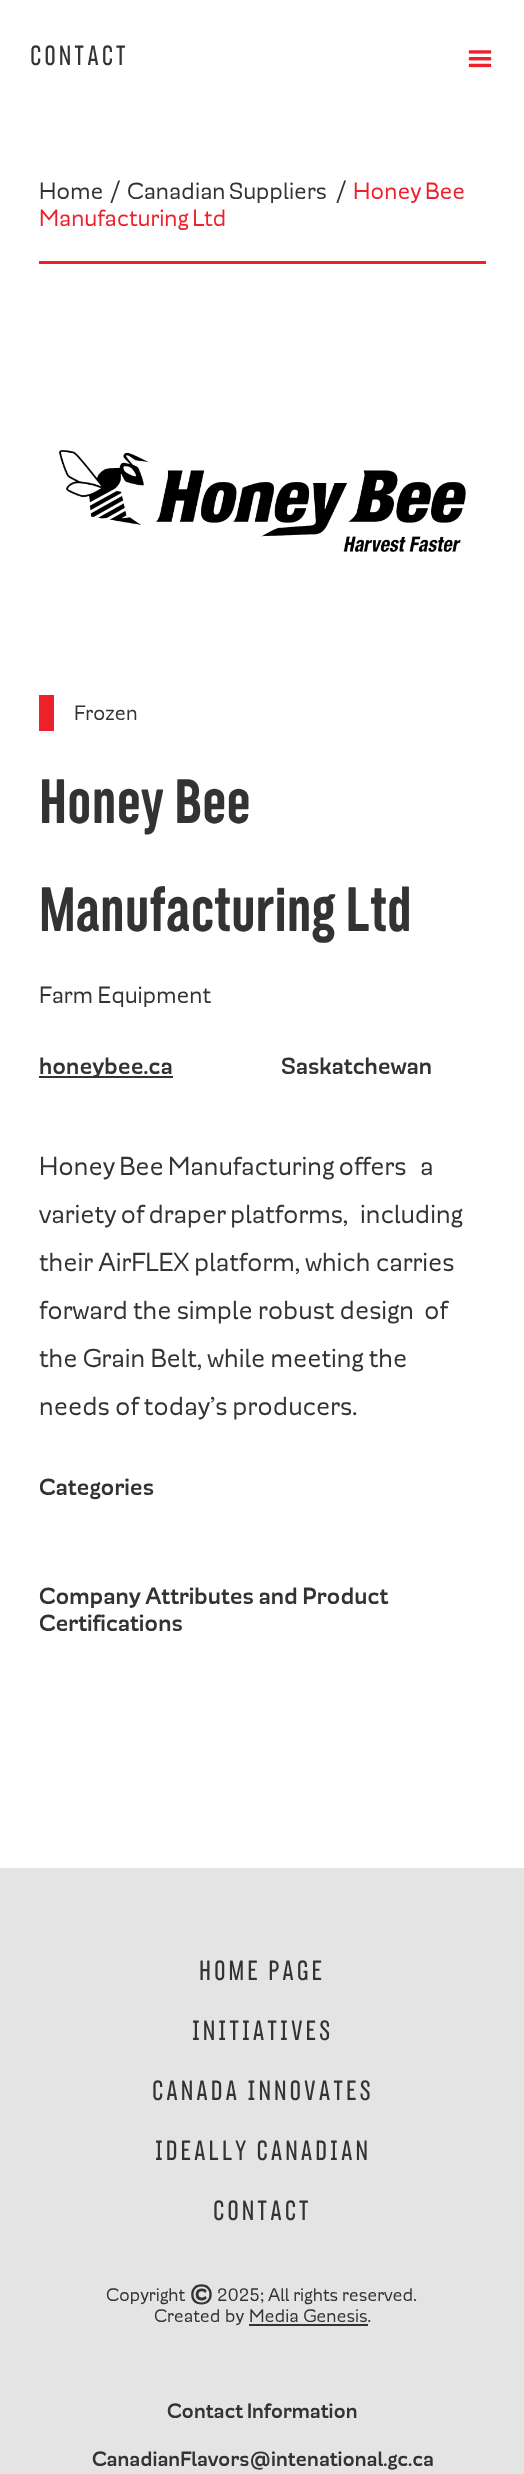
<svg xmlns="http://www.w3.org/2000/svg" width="524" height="2474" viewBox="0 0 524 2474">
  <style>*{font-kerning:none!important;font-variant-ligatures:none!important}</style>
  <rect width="100%" height="100%" fill="#ffffff"/>
  <text x="30" y="65" font-family="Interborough" font-size="30" letter-spacing="3" fill="#333333">CONTACT</text>
  <image x="468" y="50" width="24" height="18" href="img1.png"/>
  <rect x="39" y="261" width="447" height="3" fill="#ee212b"/>
  <text x="39" y="199" font-family="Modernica" font-size="27" fill="#333333">Home /</text>
  <text x="127" y="199" word-spacing="-2" font-family="Modernica" font-size="27" fill="#333333">Canadian Suppliers</text>
  <text x="335" y="199" font-family="Modernica" font-size="27" fill="#333333">/</text>
  <text x="353" y="199" word-spacing="-2" font-family="Modernica" font-size="27" fill="#ee212b">Honey Bee</text>
  <text x="39" y="226" word-spacing="-2" font-family="Modernica" font-size="27" fill="#ee212b">Manufacturing Ltd</text>
  <image x="59" y="450" width="407" height="102" href="img2.png"/>
  <rect x="39" y="695" width="15" height="36" fill="#ee212b"/>
  <text x="74" y="720" font-family="Modernica" font-size="24" fill="#333333">Frozen</text>
  <text x="39" y="823" font-family="Interborough" font-size="67.5" font-weight="bold" fill="#333333">Honey Bee</text>
  <text x="39" y="931" font-family="Interborough" font-size="67.5" font-weight="bold" fill="#333333">Manufacturing Ltd</text>
  <text x="39" y="1003" word-spacing="-1" font-family="Modernica" font-size="27" fill="#333333">Farm Equipment</text>
  <rect x="39" y="1076" width="134" height="2" fill="#333333"/>
  <text x="39" y="1074" font-family="Modernica" font-size="27" font-weight="bold" fill="#333333">honeybee.ca</text>
  <text x="281" y="1074" font-family="Modernica" font-size="27" font-weight="bold" fill="#333333">Saskatchewan</text>
  <text x="39" y="1175" word-spacing="-2" font-family="Modernica" font-size="30" fill="#333333">Honey Bee Manufacturing offers</text>
  <text x="420" y="1175" word-spacing="-2" font-family="Modernica" font-size="30" fill="#333333">a</text>
  <text x="39" y="1223" word-spacing="-2" font-family="Modernica" font-size="30" fill="#333333">variety of draper platforms,</text>
  <text x="360" y="1223" word-spacing="-2" font-family="Modernica" font-size="30" fill="#333333">including</text>
  <text x="39" y="1271" word-spacing="-1" font-family="Modernica" font-size="30" fill="#333333">their AirFLEX platform, which carries</text>
  <text x="39" y="1319" word-spacing="-1" font-family="Modernica" font-size="30" fill="#333333">forward the simple robust design</text>
  <text x="424" y="1319" word-spacing="-1" font-family="Modernica" font-size="30" fill="#333333">of</text>
  <text x="39" y="1367" word-spacing="-1" font-family="Modernica" font-size="30" fill="#333333">the Grain Belt, while meeting the</text>
  <text x="39" y="1415" word-spacing="-1" font-family="Modernica" font-size="30" fill="#333333">needs of today’s producers.</text>
  <text x="39" y="1495" font-family="Modernica" font-size="27" font-weight="bold" fill="#333333">Categories</text>
  <text x="39" y="1604" word-spacing="-1" font-family="Modernica" font-size="27" font-weight="bold" fill="#333333">Company Attributes and Product</text>
  <text x="39" y="1631" font-family="Modernica" font-size="27" font-weight="bold" fill="#333333">Certifications</text>
  <rect x="0" y="1868" width="524" height="606" fill="#e4e4e4"/>
  <text x="199" y="1980" font-family="Interborough" font-size="30" letter-spacing="3" fill="#333333">HOME PAGE</text>
  <text x="192" y="2040" font-family="Interborough" font-size="30" letter-spacing="3" fill="#333333">INITIATIVES</text>
  <text x="152" y="2100" font-family="Interborough" font-size="30" letter-spacing="3" fill="#333333">CANADA INNOVATES</text>
  <text x="155" y="2160" font-family="Interborough" font-size="30" letter-spacing="3" fill="#333333">IDEALLY CANADIAN</text>
  <text x="213" y="2220" font-family="Interborough" font-size="30" letter-spacing="3" fill="#333333">CONTACT</text>
  <text x="106" y="2301" font-family="Modernica" font-size="21" fill="#333333">Copyright</text>
  <text x="190" y="2301" font-family="Modernica" font-size="28" font-weight="bold" fill="#333333">©</text>
  <text x="217" y="2301" word-spacing="-0.5" font-family="Modernica" font-size="21" fill="#333333">2025; All rights reserved.</text>
  <text x="154" y="2322" font-family="Modernica" font-size="21" fill="#333333">Created by</text>
  <text x="249" y="2322" font-family="Modernica" font-size="21" fill="#333333">Media Genesis.</text>
  <rect x="249" y="2324" width="119" height="2" fill="#333333"/>
  <text x="167" y="2418" word-spacing="-1" font-family="Modernica" font-size="24" font-weight="bold" fill="#333333">Contact Information</text>
  <text x="92" y="2466" font-family="Modernica" font-size="24" font-weight="bold" fill="#333333">CanadianFlavors@intenational.gc.ca</text>
</svg>
